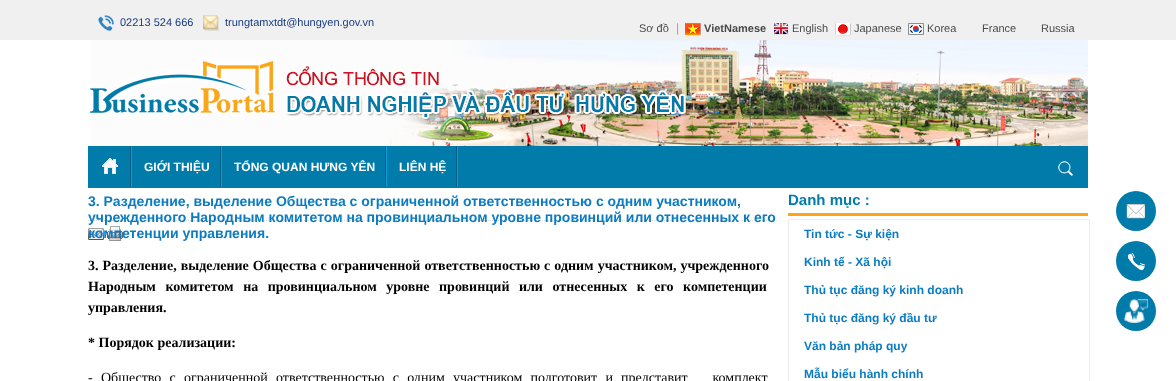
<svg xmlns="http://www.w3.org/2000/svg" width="1176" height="381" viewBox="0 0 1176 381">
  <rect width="100%" height="100%" fill="#ffffff"/>
  <rect x="0" y="0" width="1176" height="40" fill="#f0f0f0"/>
  <image x="98" y="15" width="16" height="16" href="img1.png"/>
  <text x="120" y="26" font-family="Liberation Sans" font-size="11" fill="#193b82">02213 524 666</text>
  <image x="203" y="15" width="16" height="16" href="img2.png"/>
  <text x="225" y="26" font-family="Liberation Sans" font-size="11" fill="#193b82">trungtamxtdt@hungyen.gov.vn</text>
  <text x="639" y="32" font-family="Liberation Sans" font-size="11" fill="#4a4a4a">Sơ đồ</text>
  <text x="676" y="32" font-family="Liberation Sans" font-size="12" fill="#a1a1a1">|</text>
  <image x="685" y="23" width="16" height="13" href="img3.png"/>
  <text x="704" y="32" font-family="Liberation Sans" font-size="11" font-weight="bold" fill="#4a4a4a">VietNamese</text>
  <image x="774" y="23" width="14" height="12" href="img4.png"/>
  <text x="792" y="32" font-family="Liberation Sans" font-size="11" fill="#4a4a4a">English</text>
  <image x="835" y="23" width="16" height="13" href="img5.png"/>
  <text x="854" y="32" font-family="Liberation Sans" font-size="11" fill="#4a4a4a">Japanese</text>
  <image x="908" y="23" width="16" height="12" href="img6.png"/>
  <text x="927" y="32" font-family="Liberation Sans" font-size="11" fill="#4a4a4a">Korea</text>
  <text x="982" y="32" font-family="Liberation Sans" font-size="11" fill="#4a4a4a">France</text>
  <text x="1041" y="32" font-family="Liberation Sans" font-size="11" fill="#4a4a4a">Russia</text>
  <image x="90" y="40" width="998" height="106" href="img7.png"/>
  <rect x="88" y="146" width="1000" height="42" fill="#017baa"/>
  <image x="102" y="158" width="16" height="16" href="img8.png"/>
  <image x="130" y="146" width="2" height="41" href="img9.png"/>
  <text x="144" y="171" font-family="Liberation Sans" font-size="12" font-weight="bold" fill="#ffffff">GIỚI THIỆU</text>
  <image x="220" y="146" width="2" height="41" href="img9.png"/>
  <text x="234" y="171" font-family="Liberation Sans" font-size="12" font-weight="bold" fill="#ffffff">TỔNG QUAN HƯNG YÊN</text>
  <image x="385" y="146" width="2" height="41" href="img9.png"/>
  <text x="399" y="171" font-family="Liberation Sans" font-size="12" font-weight="bold" fill="#ffffff">LIÊN HỆ</text>
  <image x="456" y="146" width="2" height="41" href="img9.png"/>
  <image x="1058" y="161" width="15" height="15" href="img10.png"/>
  <path d="M88 220.5H778" fill="none" stroke="#dcdcdc" stroke-dasharray="1 1"/>
  <text x="88" y="206" font-family="Liberation Sans" font-size="14" font-weight="bold" fill="#0b7cc1">3. Разделение, выделение Общества с ограниченной ответственностью с одним участником,</text>
  <text x="88" y="222" font-family="Liberation Sans" font-size="14" font-weight="bold" fill="#0b7cc1">учрежденного Народным комитетом на провинциальном уровне провинций или отнесенных к его</text>
  <image x="88" y="228" width="16" height="12" href="img11.png"/>
  <image x="107" y="226" width="16" height="15" href="img12.png"/>
  <text x="88" y="238" font-family="Liberation Sans" font-size="14" font-weight="bold" fill="#0b7cc1">компетенции управления.</text>
  <text x="88" y="270" word-spacing="0.5" font-family="Liberation Serif" font-size="14" font-weight="bold" fill="#000000">3. Разделение, выделение Общества с ограниченной ответственностью с одним участником, учрежденного</text>
  <text x="88" y="291" word-spacing="6" font-family="Liberation Serif" font-size="14" font-weight="bold" fill="#000000">Народным комитетом на провинциальном уровне провинций или отнесенных к его компетенции</text>
  <text x="88" y="312" font-family="Liberation Serif" font-size="14" font-weight="bold" fill="#000000">управления.</text>
  <text x="88" y="347" font-family="Liberation Serif" font-size="14" font-weight="bold" fill="#000000">* Порядок реализации:</text>
  <text x="88" y="382" word-spacing="4.75" font-family="Liberation Serif" font-size="14" fill="#000000" xml:space="preserve">- Общество с ограниченной ответственностью с одним участником подготовит и представит   комплект</text>
  <rect x="788" y="213" width="300" height="3" fill="#faa618"/>
  <text x="788" y="205" font-family="Liberation Sans" font-size="15" font-weight="bold" fill="#017baa">Danh mục :</text>
  <rect x="788.5" y="219.5" width="301" height="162" fill="none" stroke="#ededed"/>
  <text x="804" y="238" font-family="Liberation Sans" font-size="12" font-weight="bold" fill="#0b7cc1">Tin tức - Sự kiện</text>
  <text x="804" y="266" font-family="Liberation Sans" font-size="12" font-weight="bold" fill="#0b7cc1">Kinh tế - Xã hội</text>
  <text x="804" y="294" font-family="Liberation Sans" font-size="12" font-weight="bold" fill="#0b7cc1">Thủ tục đăng ký kinh doanh</text>
  <text x="804" y="322" font-family="Liberation Sans" font-size="12" font-weight="bold" fill="#0b7cc1">Thủ tục đăng ký đầu tư</text>
  <text x="804" y="350" font-family="Liberation Sans" font-size="12" font-weight="bold" fill="#0b7cc1">Văn bản pháp quy</text>
  <text x="804" y="378" font-family="Liberation Sans" font-size="12" font-weight="bold" fill="#0b7cc1">Mẫu biểu hành chính</text>
  <circle cx="1136" cy="211" r="20" fill="#017baa"/>
  <image x="1126" y="204" width="19" height="15" href="img13.png"/>
  <circle cx="1136" cy="261" r="20" fill="#017baa"/>
  <image x="1127" y="253" width="18" height="17" href="img14.png"/>
  <circle cx="1136" cy="311" r="20" fill="#017baa"/>
  <image x="1124" y="299" width="24" height="24" href="img15.png"/>
</svg>
